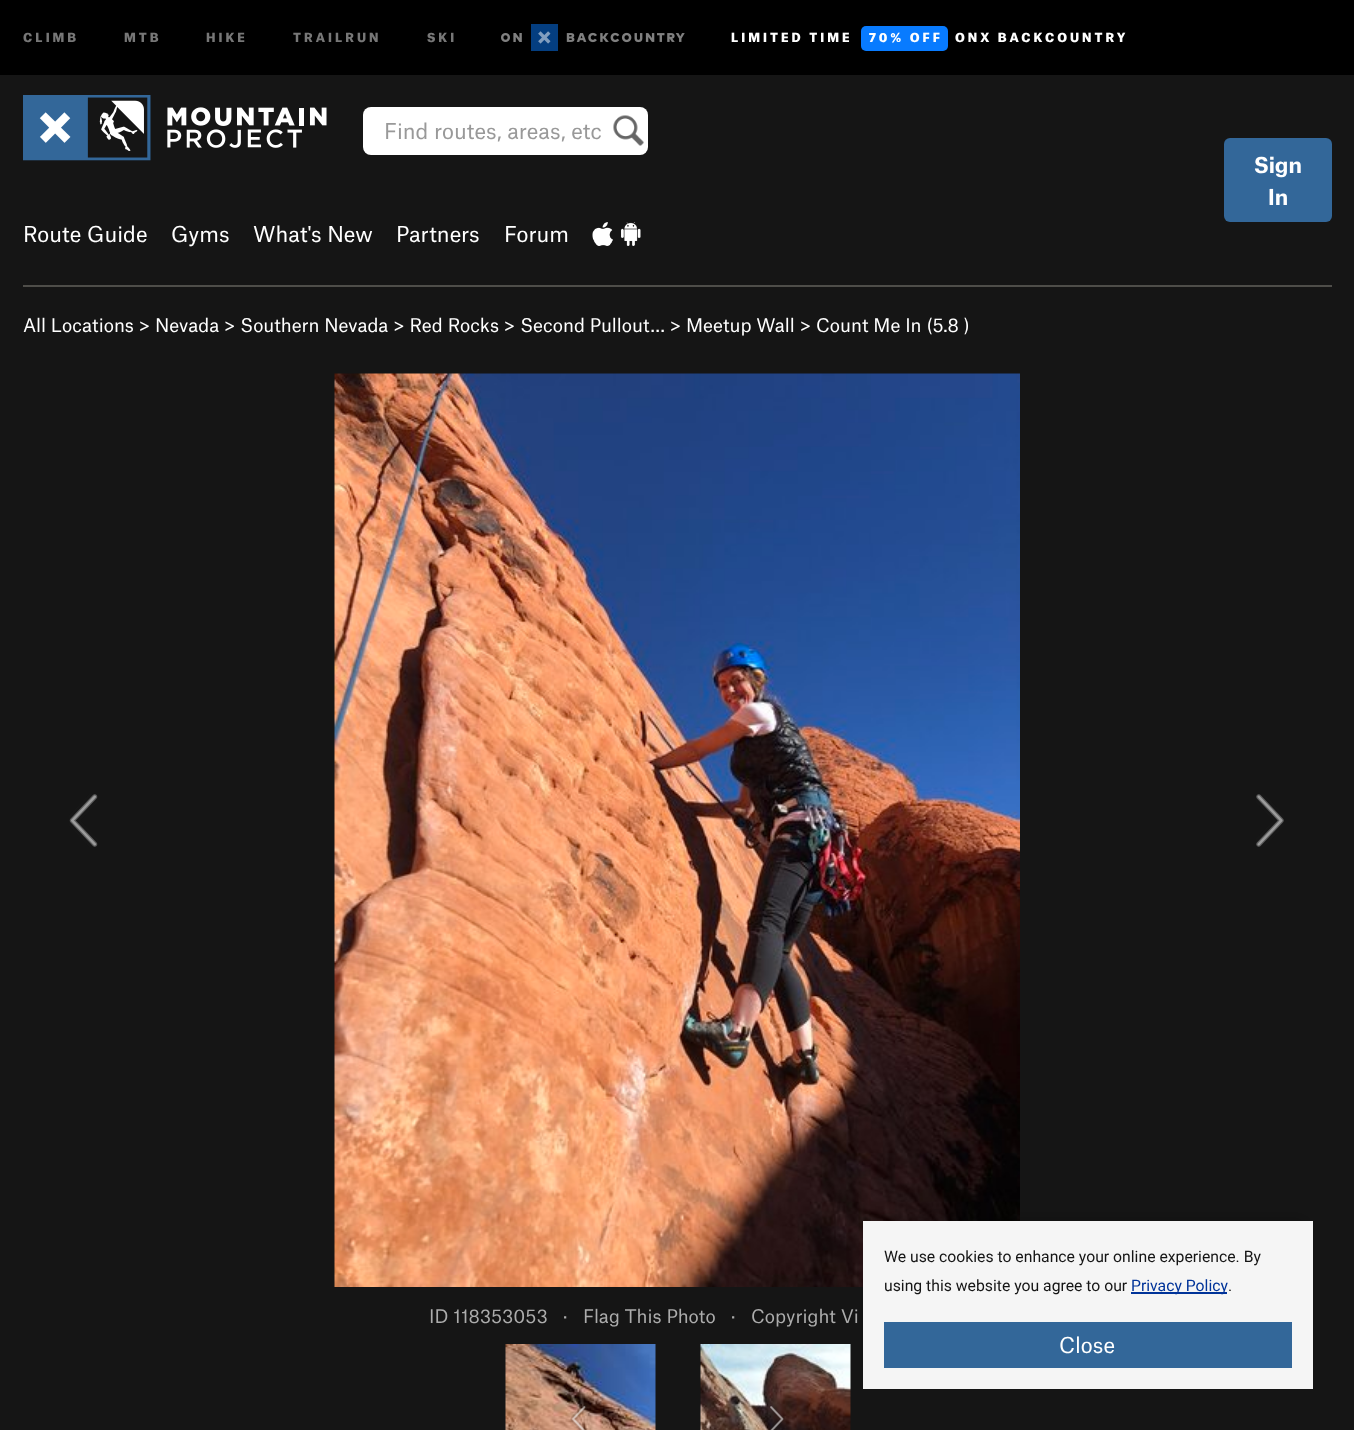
<svg xmlns="http://www.w3.org/2000/svg" width="1354" height="1430" viewBox="0 0 1354 1430">
  <defs>
    <filter id="blur1" x="-50%" y="-200%" width="200%" height="500%"><feGaussianBlur stdDeviation="7.5"/></filter>
  </defs>
  <rect width="100%" height="100%" fill="#151515"/>
  <rect x="0" y="0" width="1354" height="75" fill="#000000"/>
  <text x="23" y="42" font-family="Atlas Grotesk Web" font-size="12" font-weight="900" letter-spacing="3" fill="#777777">CLIMB</text>
  <text x="124" y="42" font-family="Atlas Grotesk Web" font-size="12" font-weight="900" letter-spacing="3" fill="#777777">MTB</text>
  <text x="206" y="42" font-family="Atlas Grotesk Web" font-size="12" font-weight="900" letter-spacing="3" fill="#777777">HIKE</text>
  <text x="293" y="42" font-family="Atlas Grotesk Web" font-size="12" font-weight="900" letter-spacing="3" fill="#777777">TRAILRUN</text>
  <text x="427" y="42" font-family="Atlas Grotesk Web" font-size="12" font-weight="900" letter-spacing="3" fill="#777777">SKI</text>
  <image x="501" y="24" width="184" height="27" href="img1.png"/>
  <text x="731" y="42" font-family="Atlas Grotesk Web" font-size="12" font-weight="900" letter-spacing="3" fill="#ffffff">LIMITED TIME</text>
  <rect x="861" y="26" width="87" height="25" rx="5" fill="#087bff"/>
  <text x="869" y="42" font-family="Atlas Grotesk Web" font-size="12" font-weight="900" letter-spacing="3" fill="#ffffff">70% OFF</text>
  <text x="955" y="42" font-family="Atlas Grotesk Web" font-size="12" font-weight="900" letter-spacing="3" fill="#ffffff">ONX BACKCOUNTRY</text>
  <image x="23" y="95" width="304" height="66" href="img2.png"/>
  <rect x="363" y="107" width="285" height="48" rx="8" fill="#ffffff"/>
  <image x="613" y="115" width="31" height="31" href="img3.png"/>
  <text x="384" y="139" font-family="Atlas Grotesk Web" font-size="21" fill="#999999">Find routes, areas, etc</text>
  <text x="23" y="242" font-family="Atlas Grotesk Web" font-size="21" fill="#ffffff">Route Guide</text>
  <text x="171" y="242" font-family="Atlas Grotesk Web" font-size="21" fill="#ffffff">Gyms</text>
  <text x="253" y="242" font-family="Atlas Grotesk Web" font-size="21" fill="#ffffff">What's New</text>
  <text x="396" y="242" font-family="Atlas Grotesk Web" font-size="21" fill="#ffffff">Partners</text>
  <text x="504" y="242" font-family="Atlas Grotesk Web" font-size="21" fill="#ffffff">Forum</text>
  <image x="592" y="222" width="21" height="24" href="img4.png"/>
  <image x="621" y="222" width="20" height="24" href="img5.png"/>
  <rect x="1224" y="138" width="108" height="84" rx="6" fill="#336799"/>
  <text x="1254" y="173" font-family="Atlas Grotesk Web" font-size="21" font-weight="bold" fill="#ffffff">Sign</text>
  <text x="1268" y="205" font-family="Atlas Grotesk Web" font-size="21" font-weight="bold" fill="#ffffff">In</text>
  <rect x="23" y="285" width="1309" height="2" fill="#4e4d49"/>
  <text x="23" y="332" font-family="Atlas Grotesk Web" font-size="18" fill="#ffffff">All Locations &gt; Nevada &gt; Southern Nevada &gt; Red Rocks &gt; Second Pullout… &gt; Meetup Wall &gt; Count Me In (5.8 )</text>
  <image x="69" y="794" width="29" height="53" href="img6.png"/>
  <image x="334" y="373" width="686" height="914" href="img7.png"/>
  <image x="1256" y="794" width="28" height="53" href="img8.png"/>
  <text x="429" y="1323" font-family="Atlas Grotesk Web" font-size="18" fill="#acacac">ID 118353053</text>
  <text x="563" y="1323" font-family="Atlas Grotesk Web" font-size="18" fill="#acacac">·</text>
  <text x="583" y="1323" font-family="Atlas Grotesk Web" font-size="18" fill="#acacac">Flag This Photo</text>
  <text x="731" y="1323" font-family="Atlas Grotesk Web" font-size="18" fill="#acacac">·</text>
  <text x="751" y="1323" font-family="Atlas Grotesk Web" font-size="18" fill="#acacac">Copyright Vi</text>
  <image x="505" y="1344" width="151" height="86" href="img9.png"/>
  <image x="570" y="1405" width="17" height="25" href="img10.png"/>
  <image x="700" y="1344" width="151" height="86" href="img11.png"/>
  <image x="770" y="1405" width="14" height="25" href="img12.png"/>
  <rect x="870" y="1221" width="435" height="153" fill="#000000" fill-opacity="0.25" filter="url(#blur1)"/>
  <rect x="863" y="1221" width="450" height="168" fill="#f5f5f5"/>
  <text x="884" y="1262" font-family="Roboto" font-size="15.75" fill="#151515">We use cookies to enhance your online experience. By</text>
  <text x="884" y="1291" font-family="Roboto" font-size="15.75" fill="#151515">using this website you agree to our</text>
  <rect x="1131" y="1292" width="96" height="2" fill="#003399"/>
  <text x="1131" y="1291" font-family="Roboto" font-size="15.75" fill="#003399">Privacy Policy</text>
  <text x="1228" y="1291" font-family="Roboto" font-size="15.75" fill="#151515">.</text>
  <rect x="884" y="1322" width="408" height="46" fill="#336799"/>
  <text x="1059" y="1353" font-family="Atlas Grotesk Web" font-size="21" fill="#ffffff">Close</text>
</svg>
